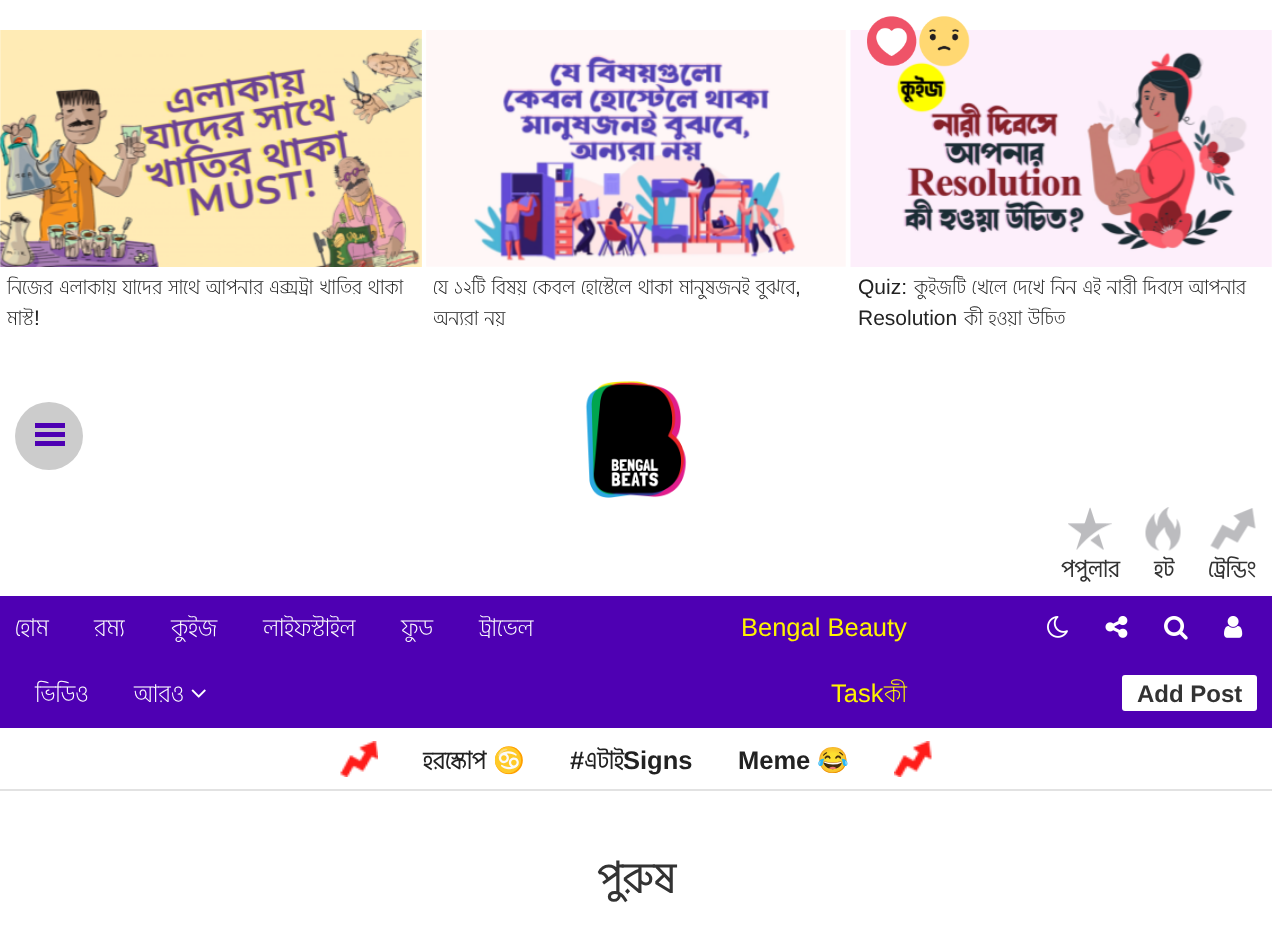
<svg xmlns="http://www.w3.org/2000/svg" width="1272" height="928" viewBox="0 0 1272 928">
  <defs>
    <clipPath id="clip1"><rect x="434" y="272" width="405" height="63"/></clipPath>
  </defs>
  <rect width="100%" height="100%" fill="#ffffff"/>
  <image x="0" y="30" width="422" height="237" href="img1.png"/>
  <text x="7" y="294" word-spacing="1" font-family="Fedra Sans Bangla" font-size="21" font-weight="300" fill="#222222">নিজের এলাকায় যাদের সাথে আপনার এক্সট্রা খাতির থাকা</text>
  <text x="7" y="325" font-family="Fedra Sans Bangla" font-size="21" font-weight="300" fill="#222222">মাস্ট</text>
  <text x="34" y="325" font-family="Liberation Sans" font-size="21" fill="#222222">!</text>
  <image x="426" y="30" width="420" height="237" href="img2.png"/>
  <g clip-path="url(#clip1)">
    <text x="433" y="294" word-spacing="1" font-family="Fedra Sans Bangla" font-size="21" font-weight="300" fill="#222222">যে ১২টি বিষয় কেবল হোস্টেলে থাকা মানুষজনই বুঝবে</text>
  </g>
  <text x="795" y="294" font-family="Liberation Sans" font-size="21" fill="#222222">,</text>
  <g clip-path="url(#clip1)">
    <text x="433" y="325" word-spacing="1" font-family="Fedra Sans Bangla" font-size="21" font-weight="300" fill="#222222">অন্যরা নয়</text>
  </g>
  <image x="850" y="30" width="422" height="237" href="img5.png"/>
  <image x="867" y="16" width="50" height="50" href="img3.png"/>
  <image x="919" y="16" width="51" height="51" href="img4.png"/>
  <text x="858" y="294" font-family="Liberation Sans" font-size="21" fill="#222222">Quiz:</text>
  <text x="914" y="294" word-spacing="1" font-family="Fedra Sans Bangla" font-size="21" font-weight="300" fill="#222222">কুইজটি খেলে দেখে নিন এই নারী দিবসে আপনার</text>
  <text x="858" y="325" font-family="Liberation Sans" font-size="21" fill="#222222">Resolution</text>
  <text x="964" y="325" word-spacing="1" font-family="Fedra Sans Bangla" font-size="21" font-weight="300" fill="#222222">কী হওয়া উচিত</text>
  <circle cx="49" cy="436" r="34" fill="#cccccc"/>
  <rect x="35" y="432" width="30" height="5" fill="#4e00b3"/>
  <rect x="35" y="423" width="30" height="5" fill="#4e00b3"/>
  <rect x="35" y="441" width="30" height="5" fill="#4e00b3"/>
  <image x="585" y="381" width="102" height="117" href="img6.png"/>
  <image x="1068" y="507" width="44" height="43" href="img7.png"/>
  <text x="1061" y="577" font-family="Fedra Sans Bangla" font-size="24" font-weight="bold" fill="#333333">পপুলার</text>
  <image x="1145" y="507" width="36" height="44" href="img8.png"/>
  <text x="1154" y="577" font-family="Fedra Sans Bangla" font-size="24" font-weight="bold" fill="#333333">হট</text>
  <image x="1210" y="508" width="46" height="42" href="img9.png"/>
  <text x="1208" y="577" font-family="Fedra Sans Bangla" font-size="24" font-weight="bold" fill="#333333">ট্রেন্ডিং</text>
  <rect x="0" y="596" width="1272" height="132" fill="#4e00b3"/>
  <text x="15" y="636" font-family="Fedra Sans Bangla" font-size="25.5" font-weight="300" fill="#ffffff">হোম</text>
  <text x="94" y="636" font-family="Fedra Sans Bangla" font-size="25.5" font-weight="300" fill="#ffffff">রম্য</text>
  <text x="171" y="636" font-family="Fedra Sans Bangla" font-size="25.5" font-weight="300" fill="#ffffff">কুইজ</text>
  <text x="263" y="636" font-family="Fedra Sans Bangla" font-size="25.5" font-weight="300" fill="#ffffff">লাইফস্টাইল</text>
  <text x="401" y="636" font-family="Fedra Sans Bangla" font-size="25.5" font-weight="300" fill="#ffffff">ফুড</text>
  <text x="479" y="636" font-family="Fedra Sans Bangla" font-size="25.5" font-weight="300" fill="#ffffff">ট্রাভেল</text>
  <text x="35" y="702" font-family="Fedra Sans Bangla" font-size="25.5" font-weight="300" fill="#ffffff">ভিডিও</text>
  <text x="134" y="702" font-family="Fedra Sans Bangla" font-size="25.5" font-weight="300" fill="#ffffff">আরও</text>
  <image x="191" y="689" width="15" height="9" href="img10.png"/>
  <text x="741" y="636" font-family="Liberation Sans" font-size="25.5" fill="#fff300">Bengal Beauty</text>
  <text x="831" y="702" font-family="Liberation Sans" font-size="25.5" fill="#fff300">Task</text>
  <text x="884" y="702" font-family="Fedra Sans Bangla" font-size="25.5" font-weight="300" fill="#fff300">কী</text>
  <image x="1047" y="616" width="21" height="22" href="img11.png"/>
  <image x="1105" y="616" width="23" height="22" href="img12.png"/>
  <image x="1164" y="616" width="24" height="24" href="img13.png"/>
  <image x="1224" y="616" width="19" height="22" href="img14.png"/>
  <rect x="1122" y="675" width="135" height="36" rx="3" fill="#ffffff"/>
  <text x="1137" y="702" font-family="Liberation Sans" font-size="24" font-weight="bold" fill="#333333">Add Post</text>
  <rect x="0" y="789" width="1272" height="2" fill="#e2e2e2"/>
  <image x="340" y="741" width="38" height="36" href="img15.png"/>
  <text x="423" y="769" font-family="Fedra Sans Bangla" font-size="25.5" font-weight="bold" fill="#222222">হরস্কোপ</text>
  <text x="493" y="769" font-family="Noto Color Emoji" font-size="25.5" font-weight="bold" fill="#222222">♋</text>
  <text x="570" y="769" font-family="Liberation Sans" font-size="25.5" font-weight="bold" fill="#222222">#</text>
  <text x="584" y="769" font-family="Fedra Sans Bangla" font-size="25.5" font-weight="bold" fill="#222222">এটাই</text>
  <text x="623" y="769" font-family="Liberation Sans" font-size="25.5" font-weight="bold" fill="#222222">Signs</text>
  <text x="738" y="769" font-family="Liberation Sans" font-size="25.5" font-weight="bold" fill="#222222">Meme</text>
  <text x="817" y="769" font-family="Noto Color Emoji" font-size="25.5" font-weight="bold" fill="#222222">😂</text>
  <image x="894" y="741" width="38" height="36" href="img16.png"/>
  <text x="597" y="893" font-family="Fedra Sans Bangla" font-size="45" font-weight="bold" fill="#333333">পুরুষ</text>
</svg>
